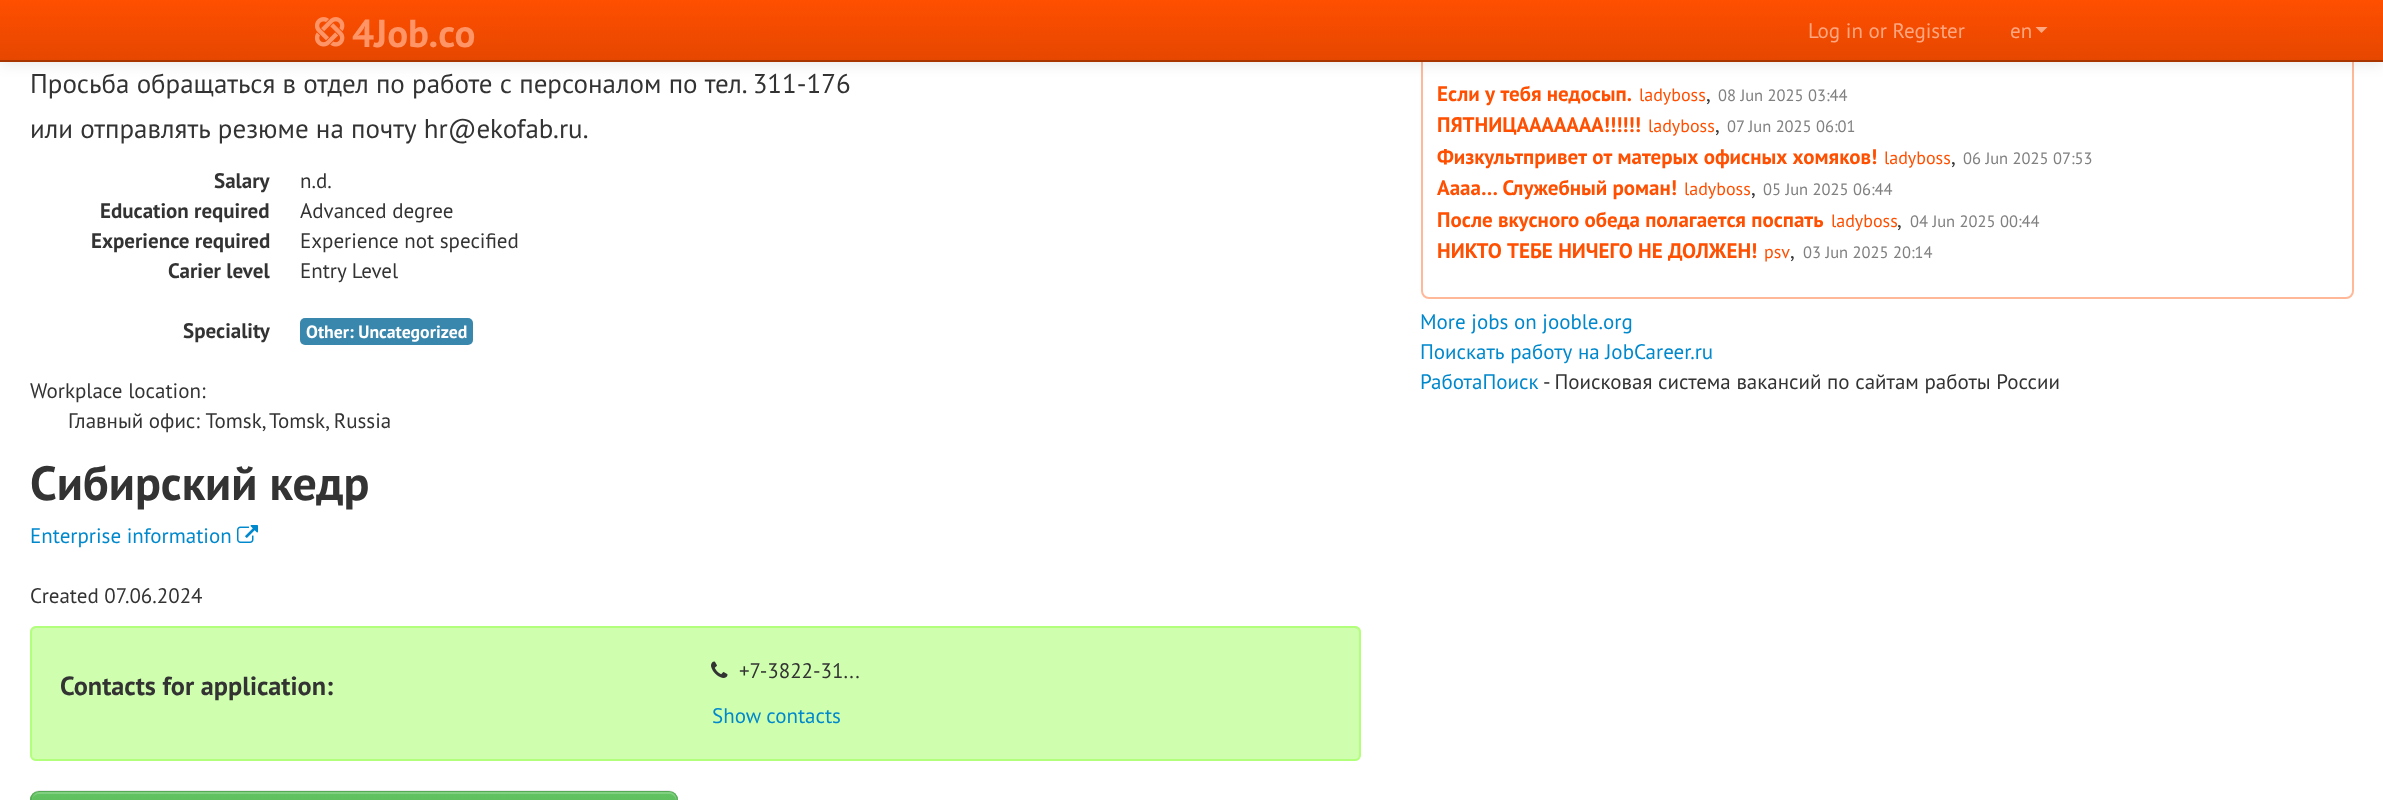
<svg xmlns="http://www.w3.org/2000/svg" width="2383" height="800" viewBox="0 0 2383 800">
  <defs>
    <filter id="blur1" x="-50%" y="-200%" width="200%" height="500%"><feGaussianBlur stdDeviation="7.5"/></filter>
    <linearGradient id="g1" gradientUnits="userSpaceOnUse" x1="1192" y1="0" x2="1192" y2="60"><stop offset="0" stop-color="#ff4f00"/><stop offset="1" stop-color="#e64700"/></linearGradient>
    <clipPath id="clip1"><rect x="30" y="791" width="648" height="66" rx="9"/></clipPath>
    <linearGradient id="g2" gradientUnits="userSpaceOnUse" x1="354" y1="792" x2="354" y2="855"><stop offset="0" stop-color="#62c462"/><stop offset="1" stop-color="#51a351"/></linearGradient>
  </defs>
  <rect width="100%" height="100%" fill="#ffffff"/>
  <rect x="1422" y="-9" width="931" height="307" rx="7" fill="none" stroke="#ffb999" stroke-width="2"/>
  <rect x="0" y="2" width="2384" height="61" fill="#000000" fill-opacity="0.1" filter="url(#blur1)"/>
  <rect x="0" y="0" width="2383" height="60" fill="url(#g1)"/>
  <rect x="0" y="60" width="2383" height="2" fill="#a83400"/>
  <image x="314" y="17" width="31" height="30" href="img1.png"/>
  <text x="352" y="47" font-family="PT Sans" font-size="39" font-weight="bold" fill="#ff9566">4Job.co</text>
  <text x="1808" y="38" font-family="PT Sans" font-size="21" fill="#ffa780">Log in or Register</text>
  <text x="2010" y="38" font-family="PT Sans" font-size="21" fill="#ffa780">en</text>
  <path d="M2035.5 27H2047.5L2041.5 33Z" fill="#ffa780"/>
  <text x="30" y="93" font-family="PT Sans" font-size="27" fill="#333333">Просьба обращаться в отдел по работе с персоналом по тел. 311-176</text>
  <text x="30" y="138" font-family="PT Sans" font-size="27" fill="#333333">или отправлять резюме на почту hr@ekofab.ru.</text>
  <text x="214" y="188" font-family="PT Sans" font-size="21" font-weight="bold" fill="#333333">Salary</text>
  <text x="300" y="188" font-family="PT Sans" font-size="21" fill="#333333">n.d.</text>
  <text x="100" y="218" font-family="PT Sans" font-size="21" font-weight="bold" fill="#333333">Education required</text>
  <text x="300" y="218" font-family="PT Sans" font-size="21" fill="#333333">Advanced degree</text>
  <text x="91" y="248" font-family="PT Sans" font-size="21" font-weight="bold" fill="#333333">Experience required</text>
  <text x="300" y="248" font-family="PT Sans" font-size="21" fill="#333333">Experience not specified</text>
  <text x="168" y="278" font-family="PT Sans" font-size="21" font-weight="bold" fill="#333333">Carier level</text>
  <text x="300" y="278" font-family="PT Sans" font-size="21" fill="#333333">Entry Level</text>
  <text x="183" y="338" font-family="PT Sans" font-size="21" font-weight="bold" fill="#333333">Speciality</text>
  <rect x="300" y="318" width="173" height="27" rx="5" fill="#3a87ad"/>
  <text x="306" y="338" font-family="PT Sans" font-size="17.75" font-weight="bold" fill="#ffffff">Other: Uncategorized</text>
  <text x="30" y="398" font-family="PT Sans" font-size="21" fill="#333333">Workplace location:</text>
  <text x="68" y="428" font-family="PT Sans" font-size="21" fill="#333333">Главный офис: Tomsk,</text>
  <text x="269" y="428" font-family="PT Sans" font-size="21" fill="#333333">Tomsk, Russia</text>
  <text x="30" y="500" font-family="PT Sans" font-size="48" font-weight="bold" fill="#333333">Сибирский кедр</text>
  <text x="30" y="543" font-family="PT Sans" font-size="21" fill="#0088cc">Enterprise information</text>
  <image x="237" y="525" width="21" height="18" href="img2.png"/>
  <text x="30" y="603" font-family="PT Sans" font-size="21" fill="#333333">Created 07.06.2024</text>
  <rect x="30" y="626" width="1331" height="135" rx="6" fill="#cfffae"/>
  <path d="M36 628H1354C1357 628 1359 631 1359 633C1359 630 1357 627 1354 627H37C34 627 32 630 32 633C32 631 34 628 36 628Z" fill="#c5f2a5"/>
  <rect x="31" y="627" width="1329" height="133" rx="5" fill="none" stroke="#b2ff7b" stroke-width="2"/>
  <text x="60" y="695" font-family="PT Sans" font-size="26.25" font-weight="bold" fill="#333333">Contacts for application:</text>
  <image x="711" y="661" width="17" height="17" href="img3.png"/>
  <text x="739" y="678" font-family="PT Sans" font-size="21" fill="#333333">+7-3822-31...</text>
  <text x="712" y="723" font-family="PT Sans" font-size="21" fill="#0088cc">Show contacts</text>
  <rect x="30" y="791" width="648" height="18" rx="9" fill="#5bb75b"/>
  <g clip-path="url(#clip1)">
    <rect x="30" y="792" width="648" height="8" fill="url(#g2)"/>
  </g>
  <path d="M39 794H669C673 794 676 797 676 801V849V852C676 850 677 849 677 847V800C677 796 673 792 669 792H40C36 792 32 796 32 800V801C32 797 35 794 39 794Z" fill="#ffffff" fill-opacity="0.2"/>
  <path d="M33 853.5C31.5 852 31 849.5 31 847.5V799.5C31 797.5 31.5 795 33 793.5C34.5 792 37 791 39 791H669C671 791 673.5 792 675 793.5C676.5 795 677 797.5 677 799.5V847.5C677 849.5 676.5 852 675 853.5" fill="none" stroke="#000000" stroke-opacity="0.1" stroke-width="1.5"/>
  <text x="1437" y="101" font-family="PT Sans" font-size="21" font-weight="bold" fill="#ff4f00">Если у тебя недосып.</text>
  <text x="1639" y="101" font-family="PT Sans" font-size="18" fill="#ff4f00">ladyboss</text>
  <text x="1706" y="101" font-family="PT Sans" font-size="21" fill="#333333">,</text>
  <text x="1718" y="101" font-family="PT Sans" font-size="16.5" fill="#808080">08 Jun 2025 03:44</text>
  <text x="1437" y="132" font-family="PT Sans" font-size="21" font-weight="bold" fill="#ff4f00">ПЯТНИЦААААААА!!!!!!</text>
  <text x="1648" y="132" font-family="PT Sans" font-size="18" fill="#ff4f00">ladyboss</text>
  <text x="1715" y="132" font-family="PT Sans" font-size="21" fill="#333333">,</text>
  <text x="1727" y="132" font-family="PT Sans" font-size="16.5" fill="#808080">07 Jun 2025 06:01</text>
  <text x="1437" y="164" font-family="PT Sans" font-size="21" font-weight="bold" fill="#ff4f00">Физкультпривет от матерых офисных хомяков!</text>
  <text x="1884" y="164" font-family="PT Sans" font-size="18" fill="#ff4f00">ladyboss</text>
  <text x="1951" y="164" font-family="PT Sans" font-size="21" fill="#333333">,</text>
  <text x="1963" y="164" font-family="PT Sans" font-size="16.5" fill="#808080">06 Jun 2025 07:53</text>
  <text x="1437" y="195" font-family="PT Sans" font-size="21" font-weight="bold" fill="#ff4f00">Аааа… Служебный роман!</text>
  <text x="1684" y="195" font-family="PT Sans" font-size="18" fill="#ff4f00">ladyboss</text>
  <text x="1751" y="195" font-family="PT Sans" font-size="21" fill="#333333">,</text>
  <text x="1763" y="195" font-family="PT Sans" font-size="16.5" fill="#808080">05 Jun 2025 06:44</text>
  <text x="1437" y="227" font-family="PT Sans" font-size="21" font-weight="bold" fill="#ff4f00">После вкусного обеда полагается поспать</text>
  <text x="1831" y="227" font-family="PT Sans" font-size="18" fill="#ff4f00">ladyboss</text>
  <text x="1897" y="227" font-family="PT Sans" font-size="21" fill="#333333">,</text>
  <text x="1910" y="227" font-family="PT Sans" font-size="16.5" fill="#808080">04 Jun 2025 00:44</text>
  <text x="1437" y="258" font-family="PT Sans" font-size="21" font-weight="bold" fill="#ff4f00">НИКТО ТЕБЕ НИЧЕГО НЕ ДОЛЖЕН!</text>
  <text x="1764" y="258" font-family="PT Sans" font-size="18" fill="#ff4f00">psv</text>
  <text x="1790" y="258" font-family="PT Sans" font-size="21" fill="#333333">,</text>
  <text x="1803" y="258" font-family="PT Sans" font-size="16.5" fill="#808080">03 Jun 2025 20:14</text>
  <text x="1420" y="329" font-family="PT Sans" font-size="21" fill="#0088cc">More jobs on jooble.org</text>
  <text x="1420" y="359" font-family="PT Sans" font-size="21" fill="#0088cc">Поискать работу на JobCareer.ru</text>
  <text x="1420" y="389" font-family="PT Sans" font-size="21" fill="#0088cc">РаботаПоиск</text>
  <text x="1543" y="389" font-family="PT Sans" font-size="21" fill="#333333">- Поисковая система вакансий по сайтам работы России</text>
</svg>
